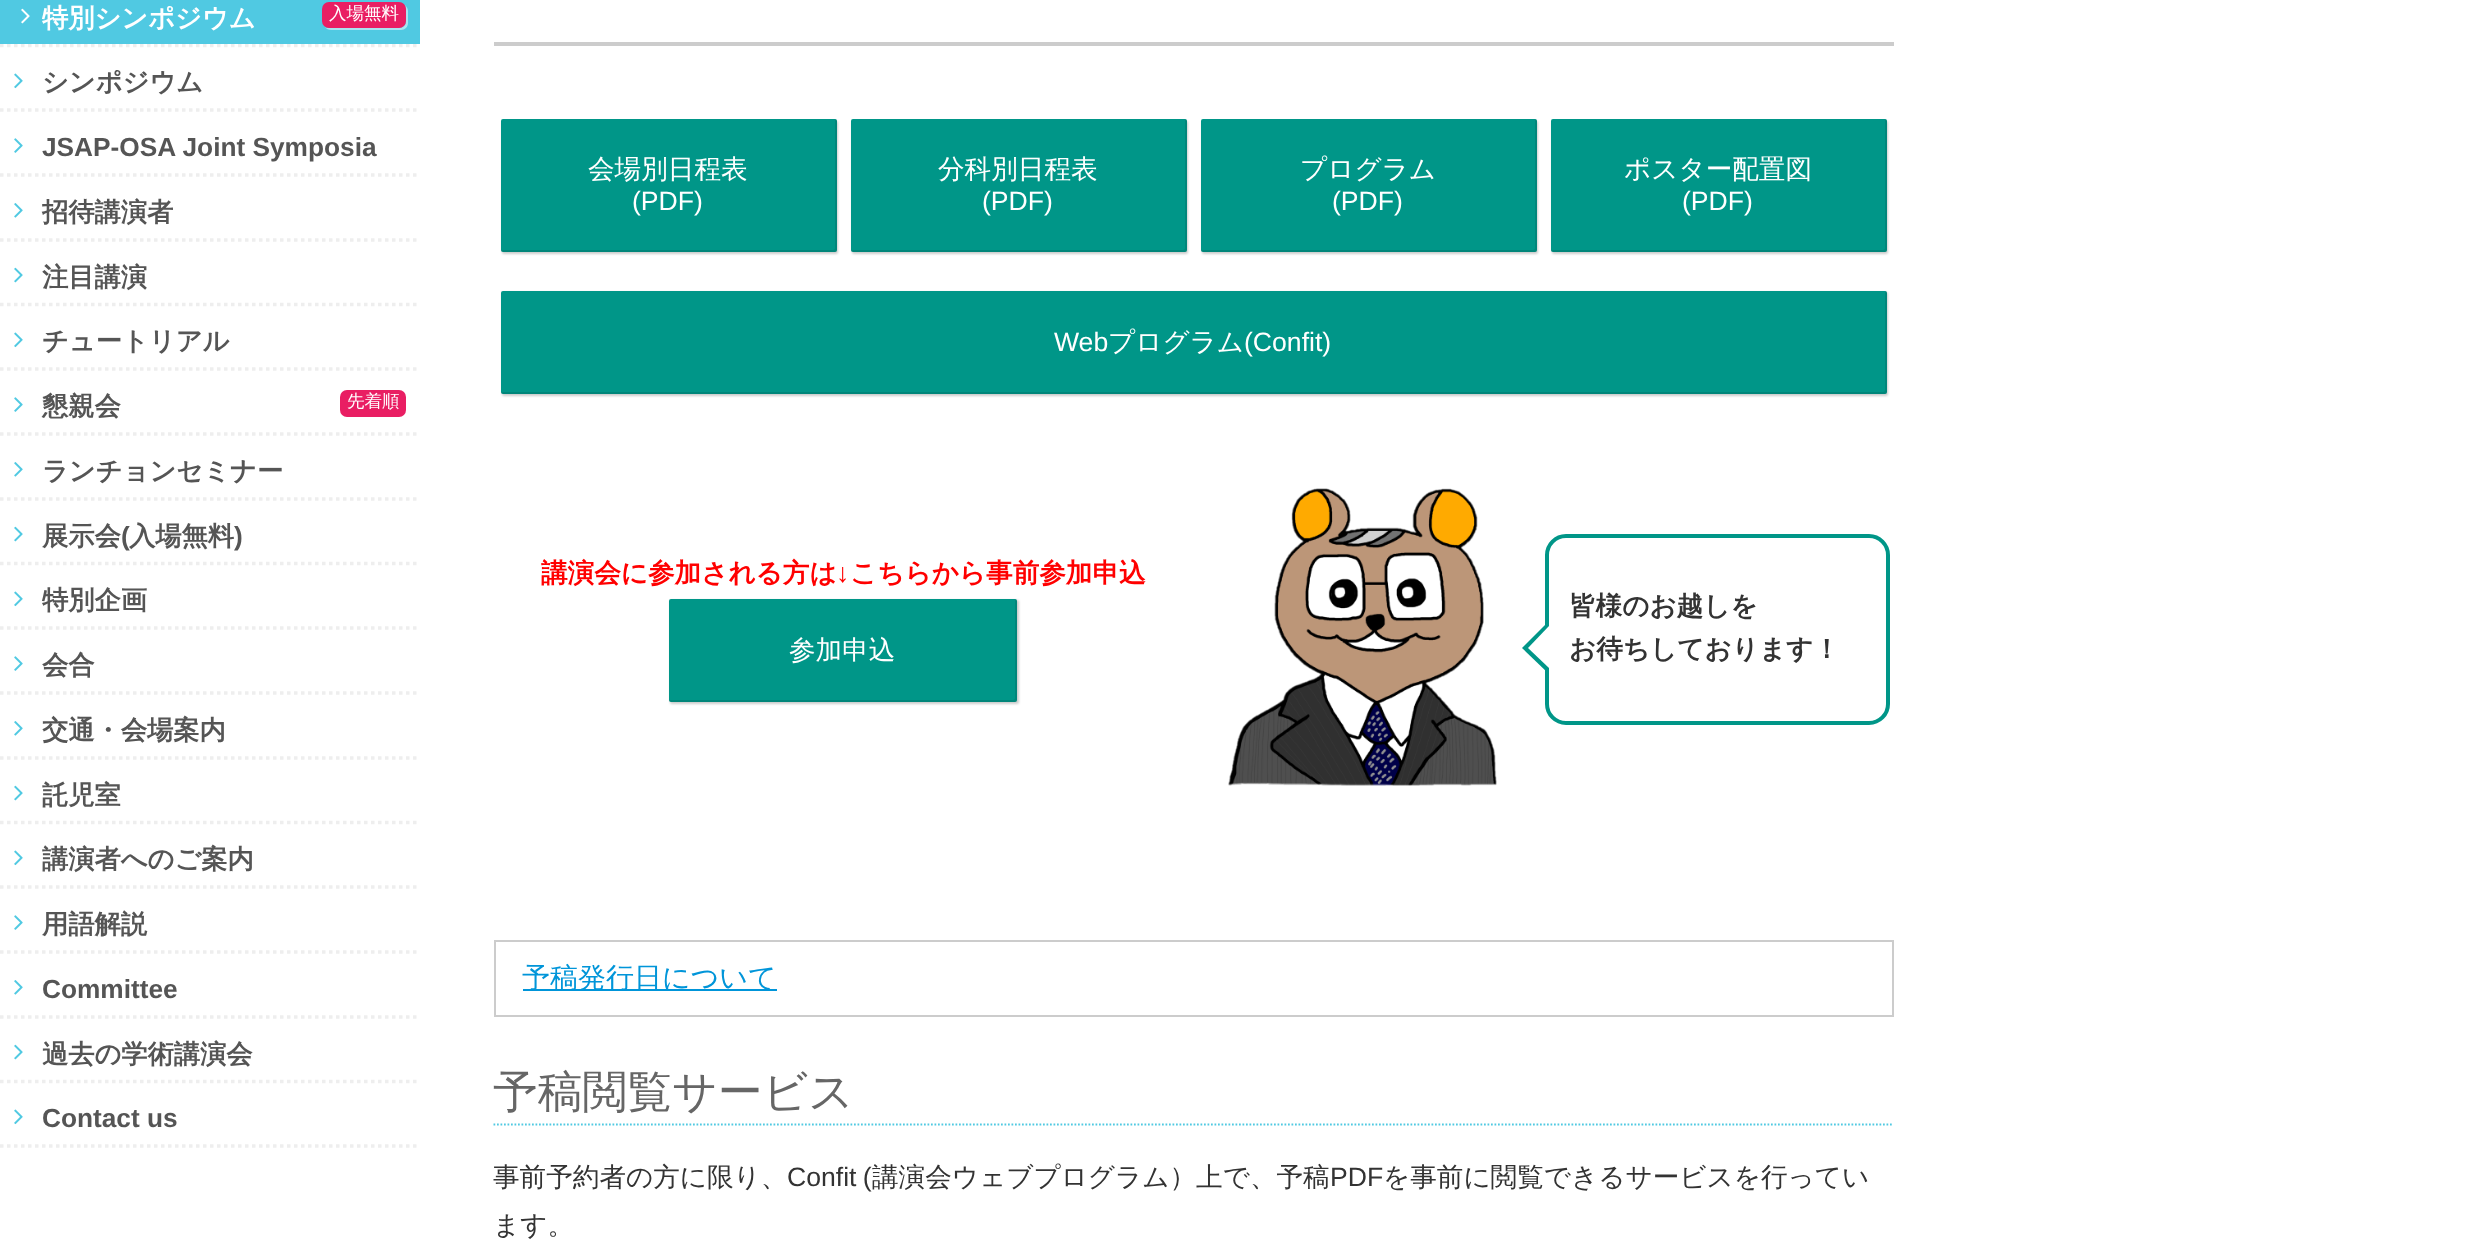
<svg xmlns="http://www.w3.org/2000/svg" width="2469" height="1241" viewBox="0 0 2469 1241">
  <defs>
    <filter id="blur1" x="-50%" y="-200%" width="200%" height="500%"><feGaussianBlur stdDeviation="1"/></filter>
  </defs>
  <rect width="100%" height="100%" fill="#ffffff"/>
  <path d="M0 45.5H420" fill="none" stroke="#eeeeee" stroke-width="3.5" stroke-dasharray="3.5 3.5"/>
  <rect x="0" y="0" width="420" height="44" fill="#50c9e2"/>
  <image x="21" y="8" width="9" height="16" href="img1.png"/>
  <text x="42" y="27" font-family="WenQuanYi Zen Hei" font-size="26.25" font-weight="bold" fill="#ffffff">特別シンポジウム</text>
  <path d="M325 27C326 29 329 30 331 30H401C405 30 408 27 408 23V11C408 9 407 7 405 5L406 9V21C406 25 403 28 399 28H329C328 28 326 28 325 27Z" fill="#a8e4f1"/>
  <rect x="322" y="2" width="84" height="26" rx="7" fill="#e91e63"/>
  <text x="329" y="19" font-family="WenQuanYi Zen Hei" font-size="17.5" font-weight="500" fill="#ffffff">入場無料</text>
  <path d="M0 110H420" fill="none" stroke="#eeeeee" stroke-width="3.5" stroke-dasharray="3.5 3.5"/>
  <image x="14" y="73" width="9" height="16" href="img2.png"/>
  <text x="42" y="91" font-family="WenQuanYi Zen Hei" font-size="26.25" font-weight="bold" fill="#555555">シンポジウム</text>
  <path d="M0 175H420" fill="none" stroke="#eeeeee" stroke-width="3.5" stroke-dasharray="3.5 3.5"/>
  <image x="14" y="138" width="9" height="15" href="img3.png"/>
  <text x="42" y="156" font-family="Liberation Sans" font-size="26.25" font-weight="bold" fill="#555555">JSAP-OSA Joint Symposia</text>
  <path d="M0 240H420" fill="none" stroke="#eeeeee" stroke-width="3.5" stroke-dasharray="3.5 3.5"/>
  <image x="14" y="203" width="9" height="15" href="img4.png"/>
  <text x="42" y="221" font-family="WenQuanYi Zen Hei" font-size="26.25" font-weight="bold" fill="#555555">招待講演者</text>
  <path d="M0 304.5H420" fill="none" stroke="#eeeeee" stroke-width="3.5" stroke-dasharray="3.5 3.5"/>
  <image x="14" y="267" width="9" height="16" href="img5.png"/>
  <text x="42" y="286" font-family="WenQuanYi Zen Hei" font-size="26.25" font-weight="bold" fill="#555555">注目講演</text>
  <path d="M0 369H420" fill="none" stroke="#eeeeee" stroke-width="3.5" stroke-dasharray="3.5 3.5"/>
  <image x="14" y="332" width="9" height="16" href="img2.png"/>
  <text x="42" y="350" font-family="WenQuanYi Zen Hei" font-size="26.25" font-weight="bold" fill="#555555">チュートリアル</text>
  <path d="M0 434H420" fill="none" stroke="#eeeeee" stroke-width="3.5" stroke-dasharray="3.5 3.5"/>
  <image x="14" y="397" width="9" height="15" href="img3.png"/>
  <text x="42" y="415" font-family="WenQuanYi Zen Hei" font-size="26.25" font-weight="bold" fill="#555555">懇親会</text>
  <rect x="340" y="390" width="66" height="27" rx="7" fill="#e91e63"/>
  <text x="347" y="407" font-family="WenQuanYi Zen Hei" font-size="17.5" font-weight="500" fill="#ffffff">先着順</text>
  <path d="M0 499H420" fill="none" stroke="#eeeeee" stroke-width="3.5" stroke-dasharray="3.5 3.5"/>
  <image x="14" y="462" width="9" height="15" href="img4.png"/>
  <text x="42" y="480" font-family="WenQuanYi Zen Hei" font-size="26.25" font-weight="bold" fill="#555555">ランチョンセミナー</text>
  <path d="M0 563.5H420" fill="none" stroke="#eeeeee" stroke-width="3.5" stroke-dasharray="3.5 3.5"/>
  <image x="14" y="526" width="9" height="16" href="img5.png"/>
  <text x="42" y="545" font-family="WenQuanYi Zen Hei" font-size="26.25" font-weight="bold" fill="#555555">展示会</text>
  <text x="121" y="545" font-family="Liberation Sans" font-size="26.25" font-weight="bold" fill="#555555">(</text>
  <text x="129" y="545" font-family="WenQuanYi Zen Hei" font-size="26.25" font-weight="bold" fill="#555555">入場無料</text>
  <text x="234" y="545" font-family="Liberation Sans" font-size="26.25" font-weight="bold" fill="#555555">)</text>
  <path d="M0 628H420" fill="none" stroke="#eeeeee" stroke-width="3.5" stroke-dasharray="3.5 3.5"/>
  <image x="14" y="591" width="9" height="16" href="img2.png"/>
  <text x="42" y="609" font-family="WenQuanYi Zen Hei" font-size="26.25" font-weight="bold" fill="#555555">特別企画</text>
  <path d="M0 693H420" fill="none" stroke="#eeeeee" stroke-width="3.5" stroke-dasharray="3.5 3.5"/>
  <image x="14" y="656" width="9" height="15" href="img3.png"/>
  <text x="42" y="674" font-family="WenQuanYi Zen Hei" font-size="26.25" font-weight="bold" fill="#555555">会合</text>
  <path d="M0 758H420" fill="none" stroke="#eeeeee" stroke-width="3.5" stroke-dasharray="3.5 3.5"/>
  <image x="14" y="721" width="9" height="15" href="img4.png"/>
  <text x="42" y="739" font-family="WenQuanYi Zen Hei" font-size="26.25" font-weight="bold" fill="#555555">交通・会場案内</text>
  <path d="M0 822.5H420" fill="none" stroke="#eeeeee" stroke-width="3.5" stroke-dasharray="3.5 3.5"/>
  <image x="14" y="785" width="9" height="16" href="img5.png"/>
  <text x="42" y="804" font-family="WenQuanYi Zen Hei" font-size="26.25" font-weight="bold" fill="#555555">託児室</text>
  <path d="M0 887H420" fill="none" stroke="#eeeeee" stroke-width="3.5" stroke-dasharray="3.5 3.5"/>
  <image x="14" y="850" width="9" height="16" href="img2.png"/>
  <text x="42" y="868" font-family="WenQuanYi Zen Hei" font-size="26.25" font-weight="bold" fill="#555555">講演者へのご案内</text>
  <path d="M0 952H420" fill="none" stroke="#eeeeee" stroke-width="3.5" stroke-dasharray="3.5 3.5"/>
  <image x="14" y="915" width="9" height="15" href="img3.png"/>
  <text x="42" y="933" font-family="WenQuanYi Zen Hei" font-size="26.25" font-weight="bold" fill="#555555">用語解説</text>
  <path d="M0 1017H420" fill="none" stroke="#eeeeee" stroke-width="3.5" stroke-dasharray="3.5 3.5"/>
  <image x="14" y="980" width="9" height="15" href="img4.png"/>
  <text x="42" y="998" font-family="Liberation Sans" font-size="26.25" font-weight="bold" fill="#555555">Committee</text>
  <path d="M0 1081.5H420" fill="none" stroke="#eeeeee" stroke-width="3.5" stroke-dasharray="3.5 3.5"/>
  <image x="14" y="1044" width="9" height="16" href="img5.png"/>
  <text x="42" y="1063" font-family="WenQuanYi Zen Hei" font-size="26.25" font-weight="bold" fill="#555555">過去の学術講演会</text>
  <path d="M0 1146H420" fill="none" stroke="#eeeeee" stroke-width="3.5" stroke-dasharray="3.5 3.5"/>
  <image x="14" y="1109" width="9" height="16" href="img2.png"/>
  <text x="42" y="1127" font-family="Liberation Sans" font-size="26.25" font-weight="bold" fill="#555555">Contact us</text>
  <rect x="494" y="42" width="1400" height="4" fill="#cccccc"/>
  <rect x="502" y="121" width="336" height="133" rx="2" fill="#000000" fill-opacity="0.2" filter="url(#blur1)"/>
  <rect x="501" y="119" width="336" height="133" rx="2" fill="#009688"/>
  <path d="M501 250C501 251 502 252 503 252H835C836 252 837 251 837 250V121C837 120 836 119 835 119V248C835 249 834 250 833 250Z" fill="#000000" fill-opacity="0.1"/>
  <text x="588" y="178" font-family="WenQuanYi Zen Hei" font-size="26.6" font-weight="500" fill="#ffffff">会場別日程表</text>
  <text x="632" y="210" font-family="Liberation Sans" font-size="26.6" fill="#ffffff">(PDF)</text>
  <rect x="852" y="121" width="336" height="133" rx="2" fill="#000000" fill-opacity="0.2" filter="url(#blur1)"/>
  <rect x="851" y="119" width="336" height="133" rx="2" fill="#009688"/>
  <path d="M851 250C851 251 852 252 853 252H1185C1186 252 1187 251 1187 250V121C1187 120 1186 119 1185 119V248C1185 249 1184 250 1183 250Z" fill="#000000" fill-opacity="0.1"/>
  <text x="938" y="178" font-family="WenQuanYi Zen Hei" font-size="26.6" font-weight="500" fill="#ffffff">分科別日程表</text>
  <text x="982" y="210" font-family="Liberation Sans" font-size="26.6" fill="#ffffff">(PDF)</text>
  <rect x="1202" y="121" width="336" height="133" rx="2" fill="#000000" fill-opacity="0.2" filter="url(#blur1)"/>
  <rect x="1201" y="119" width="336" height="133" rx="2" fill="#009688"/>
  <path d="M1201 250C1201 251 1202 252 1203 252H1535C1536 252 1537 251 1537 250V121C1537 120 1536 119 1535 119V248C1535 249 1534 250 1533 250Z" fill="#000000" fill-opacity="0.1"/>
  <text x="1300" y="178" font-family="WenQuanYi Zen Hei" font-size="26.6" font-weight="500" fill="#ffffff">プログラム</text>
  <text x="1332" y="210" font-family="Liberation Sans" font-size="26.6" fill="#ffffff">(PDF)</text>
  <rect x="1552" y="121" width="336" height="133" rx="2" fill="#000000" fill-opacity="0.2" filter="url(#blur1)"/>
  <rect x="1551" y="119" width="336" height="133" rx="2" fill="#009688"/>
  <path d="M1551 250C1551 251 1552 252 1553 252H1885C1886 252 1887 251 1887 250V121C1887 120 1886 119 1885 119V248C1885 249 1884 250 1883 250Z" fill="#000000" fill-opacity="0.1"/>
  <text x="1624" y="178" font-family="WenQuanYi Zen Hei" font-size="26.6" font-weight="500" fill="#ffffff">ポスター配置図</text>
  <text x="1682" y="210" font-family="Liberation Sans" font-size="26.6" fill="#ffffff">(PDF)</text>
  <rect x="502" y="292" width="1386" height="104" rx="2" fill="#000000" fill-opacity="0.2" filter="url(#blur1)"/>
  <rect x="501" y="291" width="1386" height="103" rx="2" fill="#009688"/>
  <path d="M501 392C501 393 502 394 503 394H1885C1886 394 1887 393 1887 392V293C1887 292 1886 291 1885 291V390C1885 391 1884 392 1883 392Z" fill="#000000" fill-opacity="0.1"/>
  <text x="1054" y="351" font-family="Liberation Sans" font-size="26.6" fill="#ffffff">Web</text>
  <text x="1108" y="351" font-family="WenQuanYi Zen Hei" font-size="26.6" font-weight="500" fill="#ffffff">プログラム</text>
  <text x="1244" y="351" font-family="Liberation Sans" font-size="26.6" fill="#ffffff">(Confit)</text>
  <text x="541" y="582" font-family="WenQuanYi Zen Hei" font-size="26.6" font-weight="bold" fill="#ff0000">講演会に参加される方は</text>
  <text x="836" y="582" font-family="Liberation Sans" font-size="26.6" font-weight="bold" fill="#ff0000">↓</text>
  <text x="850" y="582" font-family="WenQuanYi Zen Hei" font-size="26.6" font-weight="bold" fill="#ff0000">こちらから事前参加申込</text>
  <rect x="670" y="600" width="349" height="104" rx="2" fill="#000000" fill-opacity="0.2" filter="url(#blur1)"/>
  <rect x="669" y="599" width="348" height="103" rx="2" fill="#009688"/>
  <path d="M669 700C669 701 670 702 671 702H1015C1016 702 1017 701 1017 700V601C1017 600 1016 599 1015 599V698C1015 699 1014 700 1013 700Z" fill="#000000" fill-opacity="0.1"/>
  <text x="789" y="659" font-family="WenQuanYi Zen Hei" font-size="26.6" font-weight="500" fill="#ffffff">参加申込</text>
  <image x="1228" y="488" width="269" height="298" href="img6.png"/>
  <rect x="1547" y="536" width="341" height="187" rx="19" fill="none" stroke="#009688" stroke-width="4"/>
  <text x="1569" y="615" font-family="WenQuanYi Zen Hei" font-size="26.6" font-weight="bold" fill="#333333">皆様のお越しを</text>
  <path d="M1549 621V674L1522 648Z" fill="#009688"/>
  <path d="M1549 626V668L1528 648Z" fill="#ffffff"/>
  <text x="1569" y="658" font-family="WenQuanYi Zen Hei" font-size="26.6" font-weight="bold" fill="#333333">お待ちしております！</text>
  <rect x="495" y="941" width="1398" height="75" fill="none" stroke="#cccccc" stroke-width="2"/>
  <rect x="523" y="989" width="254" height="2" fill="#0095d9"/>
  <text x="522" y="987" font-family="WenQuanYi Zen Hei" font-size="28" font-weight="500" fill="#0095d9">予稿発行日について</text>
  <path d="M493.5 1124.5H1893.5" fill="none" stroke="#50c9e2" stroke-width="1.8" stroke-dasharray="1.75 1.75"/>
  <text x="493" y="1107" font-family="WenQuanYi Zen Hei" font-size="44.75" font-weight="500" fill="#666666">予稿閲覧サービス</text>
  <text x="493" y="1186" font-family="WenQuanYi Zen Hei" font-size="26.6" font-weight="500" fill="#333333">事前予約者の方に限り、</text>
  <text x="787" y="1186" word-spacing="-1" font-family="Liberation Sans" font-size="26.6" fill="#333333">Confit (</text>
  <text x="872" y="1186" font-family="WenQuanYi Zen Hei" font-size="26.6" font-weight="500" fill="#333333">講演会ウェブプログラム）上で、予稿</text>
  <text x="1330" y="1186" font-family="Liberation Sans" font-size="26.6" fill="#333333">PDF</text>
  <text x="1383" y="1186" font-family="WenQuanYi Zen Hei" font-size="26.6" font-weight="500" fill="#333333">を事前に閲覧できるサービスを行ってい</text>
  <text x="493" y="1234" font-family="WenQuanYi Zen Hei" font-size="26.6" font-weight="500" fill="#333333">ます。</text>
</svg>
